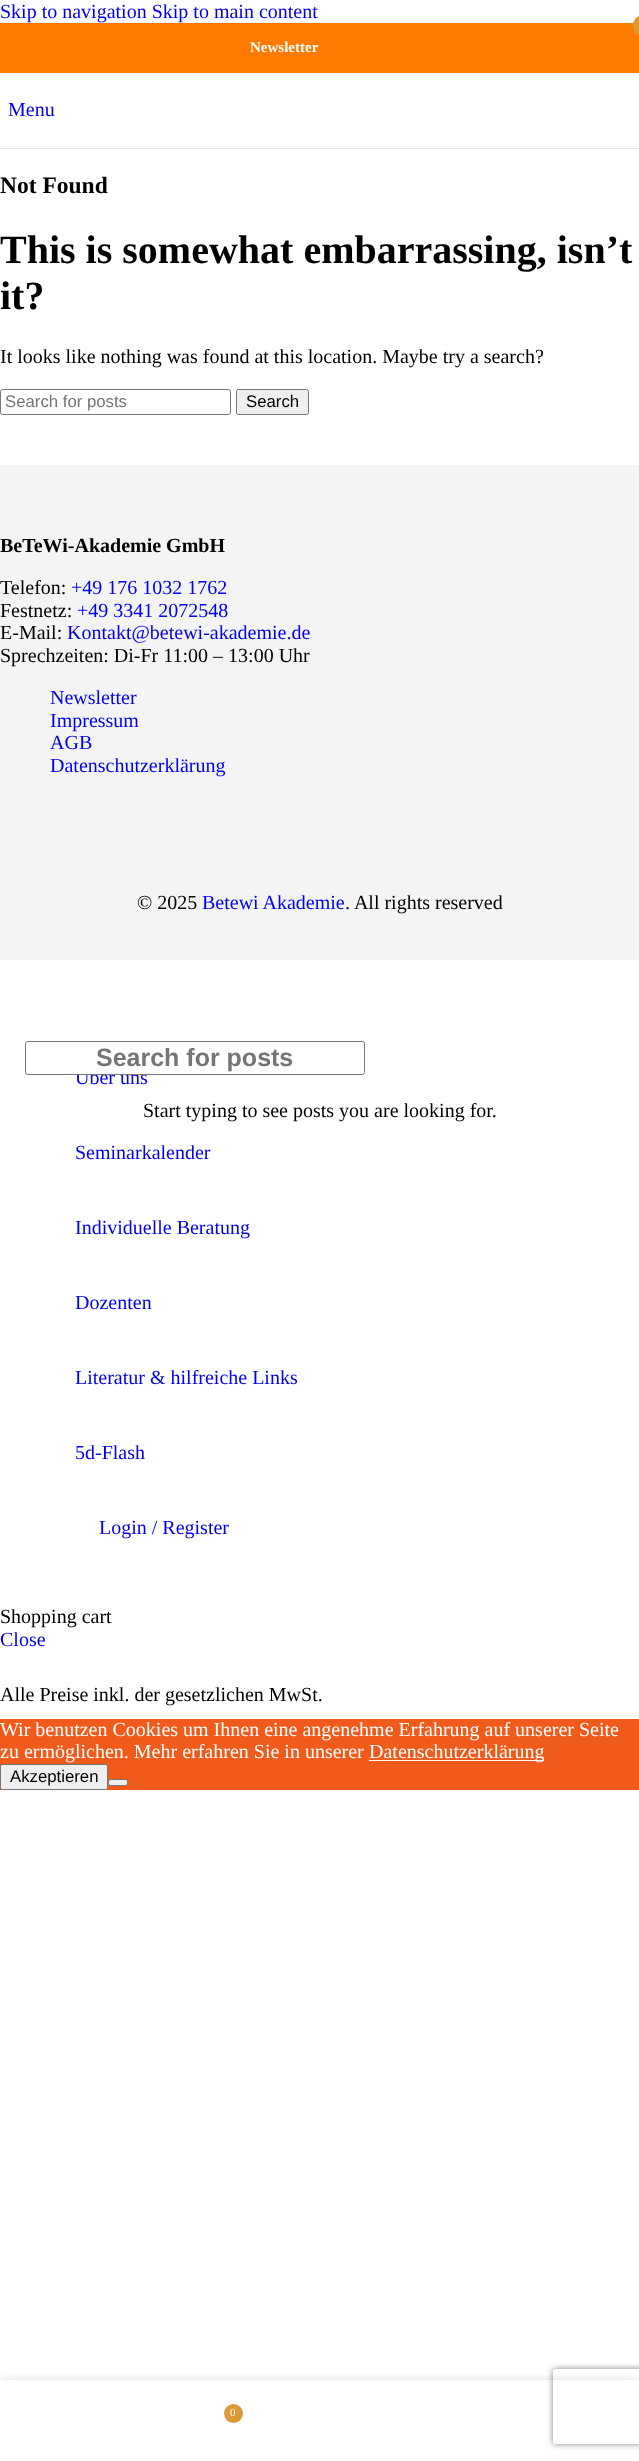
<svg xmlns="http://www.w3.org/2000/svg" width="639" height="2461" viewBox="0 0 639 2461">
  <defs>
    <clipPath id="clip1"><rect x="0" y="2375" width="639" height="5"/></clipPath>
    <filter id="blur1" x="-50%" y="-200%" width="200%" height="500%"><feGaussianBlur stdDeviation="5.5"/></filter>
    <clipPath id="clip2"><path d="M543 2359H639V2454H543ZM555.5 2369H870.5C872 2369 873 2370 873 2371.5V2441.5C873 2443 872 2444 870.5 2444H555.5C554 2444 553 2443 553 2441.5V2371.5C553 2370 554 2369 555.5 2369Z" clip-rule="evenodd"/></clipPath>
    <filter id="blur2" x="-50%" y="-200%" width="200%" height="500%"><feGaussianBlur stdDeviation="3"/></filter>
  </defs>
  <rect width="100%" height="100%" fill="#ffffff"/>
  <text x="0" y="18" font-family="Liberation Serif" font-size="20" fill="#0000ee">Skip to navigation Skip to main content</text>
  <rect x="0" y="23" width="639" height="50" fill="#ff7b00"/>
  <text x="250" y="52" font-family="Liberation Serif" font-size="15" font-weight="bold" fill="#ffffff">Newsletter</text>
  <rect x="0" y="148" width="639" height="1" fill="#e6e6e6"/>
  <rect x="633" y="16" width="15" height="19" rx="9" fill="#dd9933"/>
  <text x="8" y="116" font-family="Liberation Serif" font-size="20" fill="#0000ee">Menu</text>
  <text x="0" y="193" font-family="Liberation Serif" font-size="23.5" font-weight="bold" fill="#000000">Not Found</text>
  <text x="0" y="263" font-family="Liberation Serif" font-size="40" font-weight="bold" fill="#000000">This is somewhat embarrassing, isn’t</text>
  <text x="0" y="309" font-family="Liberation Serif" font-size="40" font-weight="bold" fill="#000000">it?</text>
  <text x="0" y="363" font-family="Liberation Serif" font-size="20" fill="#000000">It looks like nothing was found at this location. Maybe try a search?</text>
  <rect x="0.5" y="389.5" width="230" height="25" rx="2" fill="none" stroke="#767676"/>
  <text x="5" y="407" font-family="Liberation Sans" font-size="16.75" fill="#757575">Search for posts</text>
  <rect x="236.5" y="389.5" width="72" height="25" rx="2" fill="#efefef" stroke="#767676"/>
  <text x="246" y="407" font-family="Liberation Sans" font-size="16.75" fill="#000000">Search</text>
  <rect x="0" y="465" width="639" height="495" fill="#f4f4f4"/>
  <text x="0" y="552" font-family="Liberation Serif" font-size="20" font-weight="bold" fill="#000000">BeTeWi-Akademie GmbH</text>
  <text x="0" y="594" font-family="Liberation Serif" font-size="20" fill="#000000">Telefon:</text>
  <text x="71" y="594" font-family="Liberation Serif" font-size="20" fill="#0000ee">+49 176 1032 1762</text>
  <text x="0" y="617" font-family="Liberation Serif" font-size="20" fill="#000000">Festnetz:</text>
  <text x="77" y="617" font-family="Liberation Serif" font-size="20" fill="#0000ee">+49 3341 2072548</text>
  <text x="0" y="639" font-family="Liberation Serif" font-size="20" fill="#000000">E-Mail:</text>
  <text x="67" y="639" font-family="Liberation Serif" font-size="20" fill="#0000ee">Kontakt@betewi-akademie.de</text>
  <text x="0" y="662" font-family="Liberation Serif" font-size="20" fill="#000000">Sprechzeiten: Di-Fr 11:00 – 13:00 Uhr</text>
  <text x="50" y="704" font-family="Liberation Serif" font-size="20" fill="#0000ee">Newsletter</text>
  <text x="50" y="727" font-family="Liberation Serif" font-size="20" fill="#0000ee">Impressum</text>
  <text x="50" y="749" font-family="Liberation Serif" font-size="20" fill="#0000ee">AGB</text>
  <text x="50" y="772" font-family="Liberation Serif" font-size="20" fill="#0000ee">Datenschutzerklärung</text>
  <text x="137" y="909" font-family="Liberation Serif" font-size="20" fill="#000000">© 2025</text>
  <text x="202" y="909" font-family="Liberation Serif" font-size="20" fill="#0000ee">Betewi Akademie</text>
  <text x="345" y="909" font-family="Liberation Serif" font-size="20" fill="#000000">. All rights reserved</text>
  <text x="75" y="1084" font-family="Liberation Serif" font-size="20" fill="#0000ee">Über uns</text>
  <rect x="25.5" y="1041.5" width="339" height="33" rx="2" fill="#ffffff" stroke="#767676"/>
  <text x="96" y="1066" font-family="Liberation Sans" font-size="25" font-weight="bold" fill="#757575">Search for posts</text>
  <text x="143" y="1117" font-family="Liberation Serif" font-size="20" fill="#000000">Start typing to see posts you are looking for.</text>
  <text x="75" y="1159" font-family="Liberation Serif" font-size="20" fill="#0000ee">Seminarkalender</text>
  <text x="75" y="1234" font-family="Liberation Serif" font-size="20" fill="#0000ee">Individuelle Beratung</text>
  <text x="75" y="1309" font-family="Liberation Serif" font-size="20" fill="#0000ee">Dozenten</text>
  <text x="75" y="1384" font-family="Liberation Serif" font-size="20" fill="#0000ee">Literatur &amp; hilfreiche Links</text>
  <text x="75" y="1459" font-family="Liberation Serif" font-size="20" fill="#0000ee">5d-Flash</text>
  <text x="99" y="1534" font-family="Liberation Serif" font-size="20" fill="#0000ee">Login / Register</text>
  <text x="0" y="1623" font-family="Liberation Serif" font-size="20" fill="#000000">Shopping cart</text>
  <text x="0" y="1646" font-family="Liberation Serif" font-size="20" fill="#0000ee">Close</text>
  <text x="0" y="1701" font-family="Liberation Serif" font-size="20" fill="#000000">Alle Preise inkl. der gesetzlichen MwSt.</text>
  <rect x="0" y="1719" width="639" height="71" fill="#f05a1a"/>
  <text x="0" y="1736" font-family="Liberation Serif" font-size="20" fill="#ffffff">Wir benutzen Cookies um Ihnen eine angenehme Erfahrung auf unserer Seite</text>
  <text x="0" y="1758" font-family="Liberation Serif" font-size="20" fill="#ffffff">zu ermöglichen. Mehr erfahren Sie in unserer</text>
  <rect x="369" y="1760" width="175" height="1" fill="#ffffff"/>
  <text x="369" y="1758" font-family="Liberation Serif" font-size="20" fill="#ffffff">Datenschutzerklärung</text>
  <rect x="0.5" y="1764.5" width="107" height="25" rx="2" fill="#efefef" stroke="#767676"/>
  <text x="10" y="1782" font-family="Liberation Sans" font-size="16.75" fill="#000000">Akzeptieren</text>
  <rect x="108.5" y="1779.5" width="19" height="6" rx="2" fill="#efefef" stroke="#767676"/>
  <g clip-path="url(#clip1)">
    <rect x="0" y="2380" width="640" height="81" fill="#000000" fill-opacity="0.12" filter="url(#blur1)"/>
  </g>
  <circle cx="233.5" cy="2413.5" r="9.5" fill="#dd9933"/>
  <text x="230" y="2416" font-family="Liberation Serif" font-size="11" fill="#ffffff">0</text>
  <g clip-path="url(#clip2)">
    <rect x="553" y="2369" width="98" height="75" rx="2.5" fill="#808080" filter="url(#blur2)"/>
  </g>
</svg>
